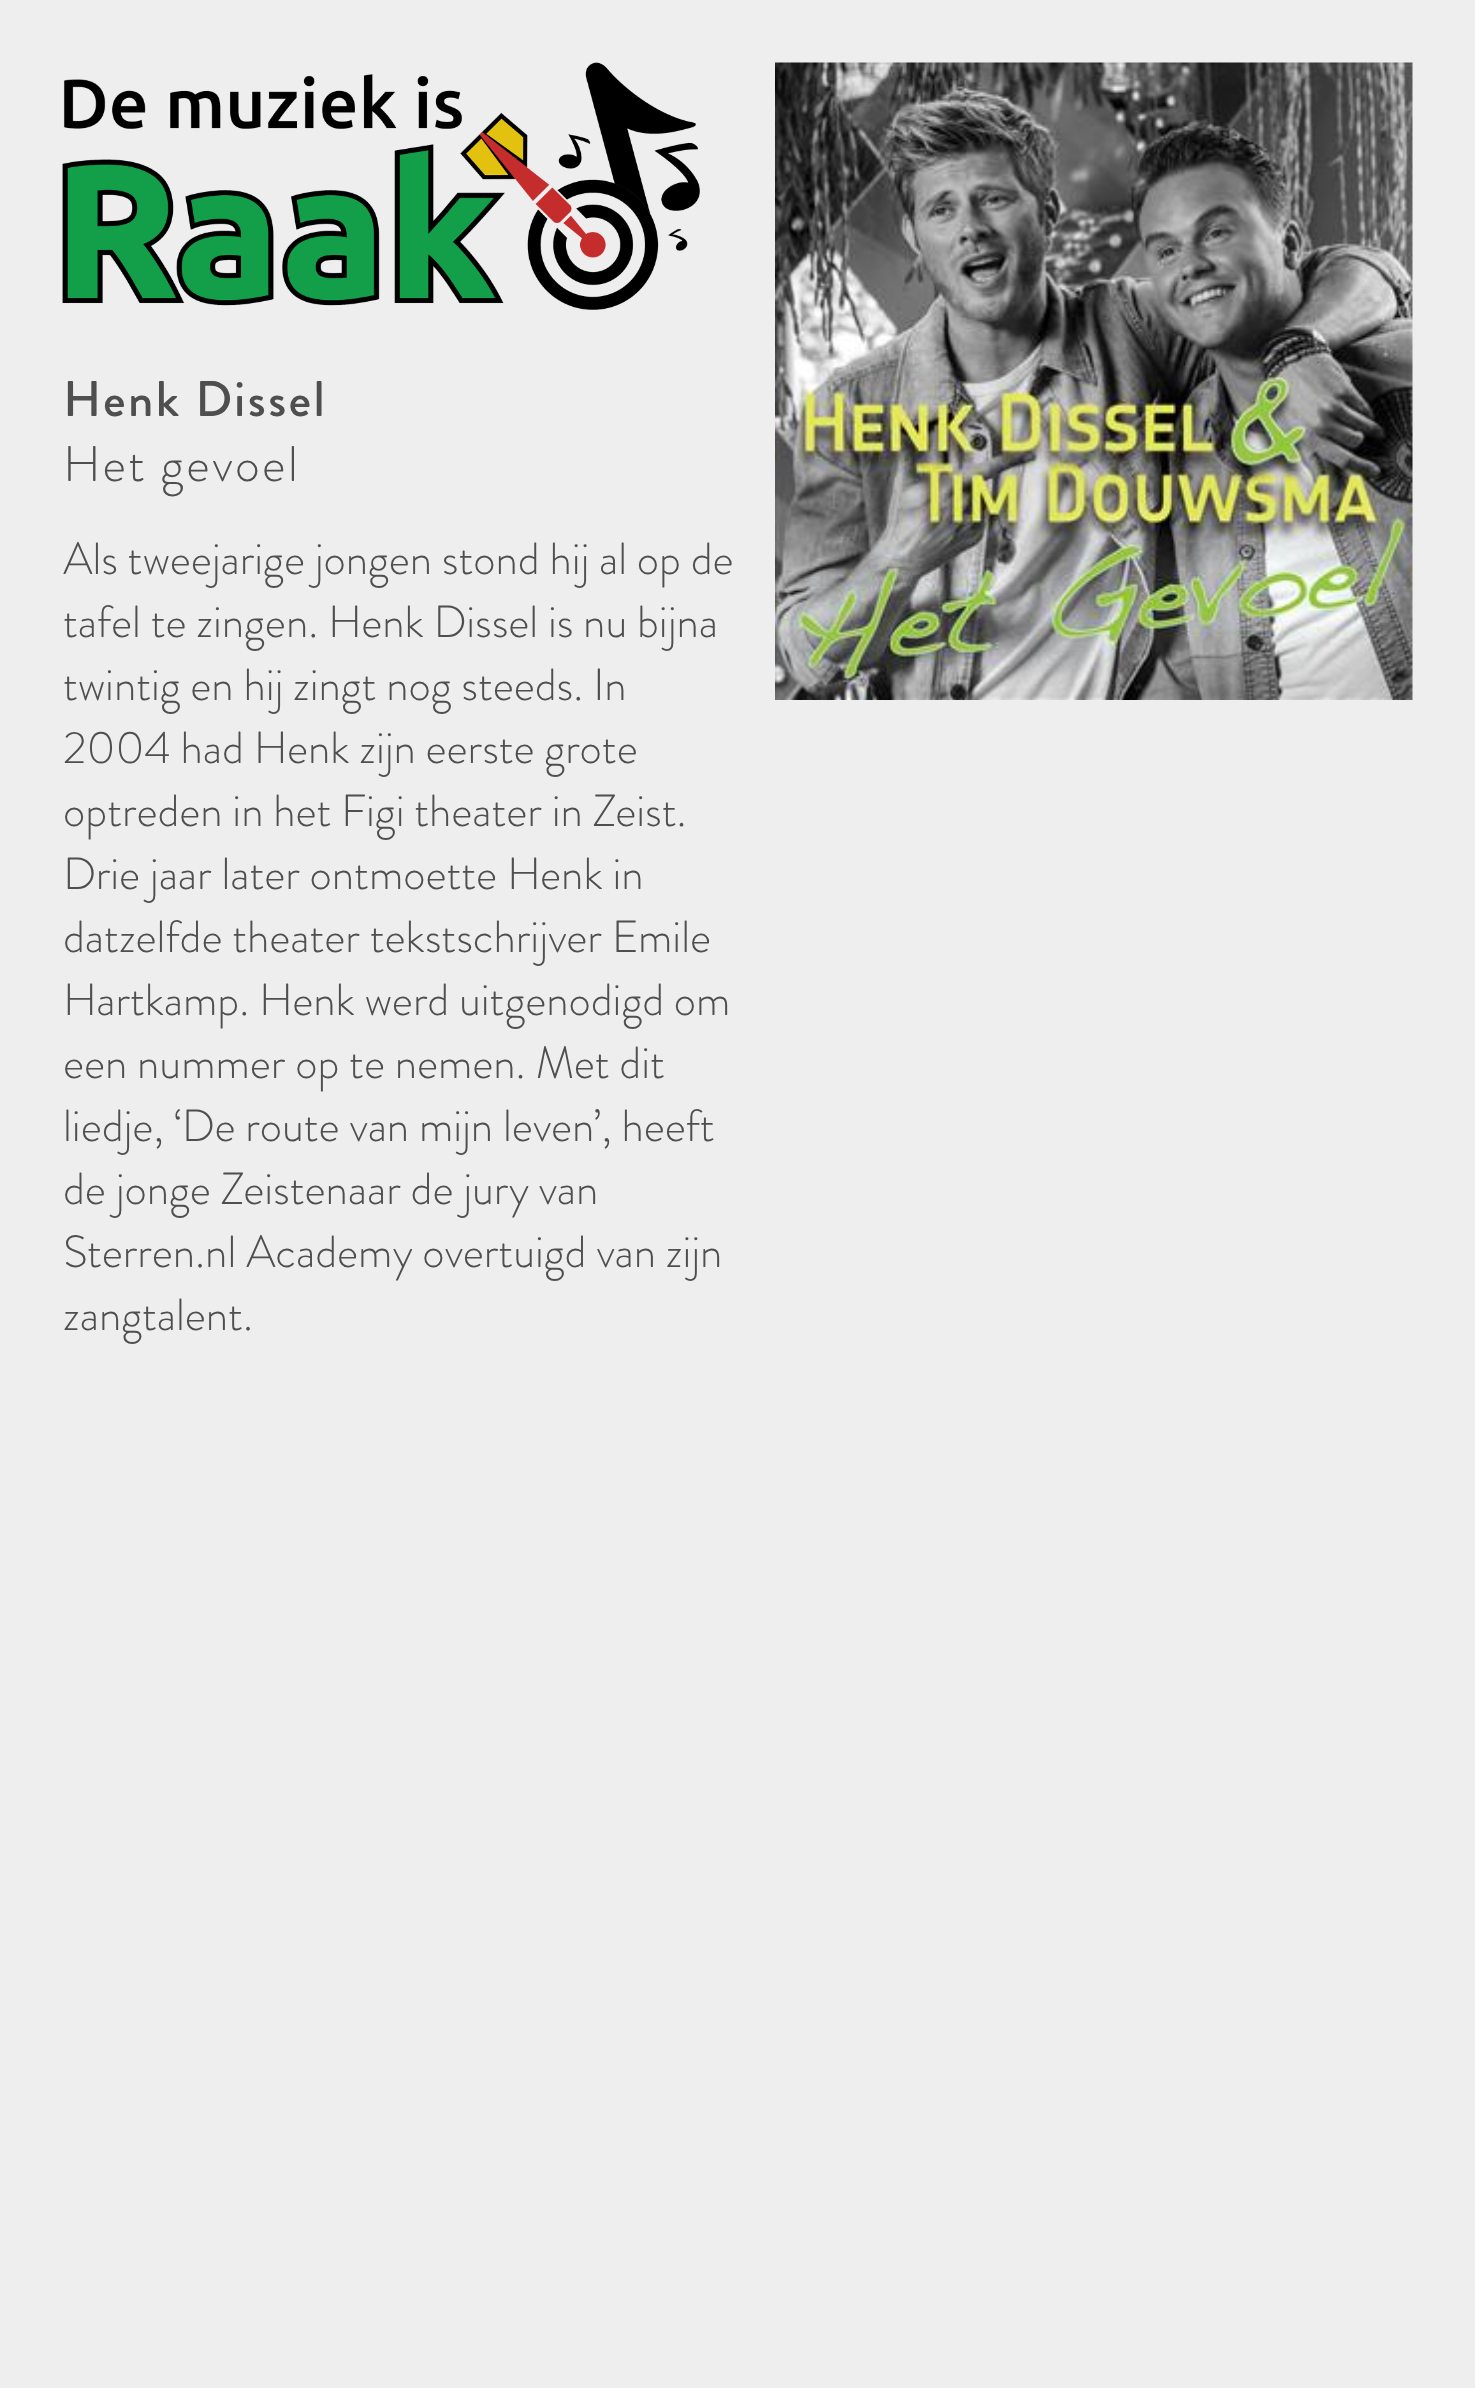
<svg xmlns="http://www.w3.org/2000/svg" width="1475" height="2388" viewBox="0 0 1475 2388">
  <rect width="100%" height="100%" fill="#eeeeee"/>
  <image x="62" y="62" width="638" height="248" href="img1.png"/>
  <image x="775" y="62" width="638" height="638" href="img2.png"/>
  <text x="63" y="416" font-family="Brandon Grotesque" font-size="50" font-weight="500" letter-spacing="2.5" fill="#4f4f4f">Henk Dissel</text>
  <text x="63" y="481" font-family="Brandon Grotesque" font-size="50" font-weight="300" letter-spacing="2.5" fill="#4f4f4f">Het gevoel</text>
  <text x="63" y="574" font-family="Brandon Grotesque" font-size="45" font-weight="300" fill="#4f4f4f">Als tweejarige jongen stond hij al op de</text>
  <text x="63" y="637" font-family="Brandon Grotesque" font-size="45" font-weight="300" fill="#4f4f4f">tafel te zingen. Henk Dissel is nu bijna</text>
  <text x="63" y="700" font-family="Brandon Grotesque" font-size="45" font-weight="300" fill="#4f4f4f">twintig en hij zingt nog steeds. In</text>
  <text x="63" y="763" font-family="Brandon Grotesque" font-size="45" font-weight="300" fill="#4f4f4f">2004 had Henk zijn eerste grote</text>
  <text x="63" y="826" font-family="Brandon Grotesque" font-size="45" font-weight="300" fill="#4f4f4f">optreden in het Figi theater in Zeist.</text>
  <text x="63" y="889" font-family="Brandon Grotesque" font-size="45" font-weight="300" fill="#4f4f4f">Drie jaar later ontmoette Henk in</text>
  <text x="63" y="952" font-family="Brandon Grotesque" font-size="45" font-weight="300" fill="#4f4f4f">datzelfde theater tekstschrijver Emile</text>
  <text x="63" y="1015" font-family="Brandon Grotesque" font-size="45" font-weight="300" fill="#4f4f4f">Hartkamp. Henk werd uitgenodigd om</text>
  <text x="63" y="1078" font-family="Brandon Grotesque" font-size="45" font-weight="300" fill="#4f4f4f">een nummer op te nemen. Met dit</text>
  <text x="63" y="1141" font-family="Brandon Grotesque" font-size="45" font-weight="300" fill="#4f4f4f">liedje, ‘De route van mijn leven’, heeft</text>
  <text x="63" y="1204" font-family="Brandon Grotesque" font-size="45" font-weight="300" fill="#4f4f4f">de jonge Zeistenaar de jury van</text>
  <text x="63" y="1267" font-family="Brandon Grotesque" font-size="45" font-weight="300" fill="#4f4f4f">Sterren.nl Academy overtuigd van zijn</text>
  <text x="63" y="1330" font-family="Brandon Grotesque" font-size="45" font-weight="300" fill="#4f4f4f">zangtalent.</text>
</svg>
